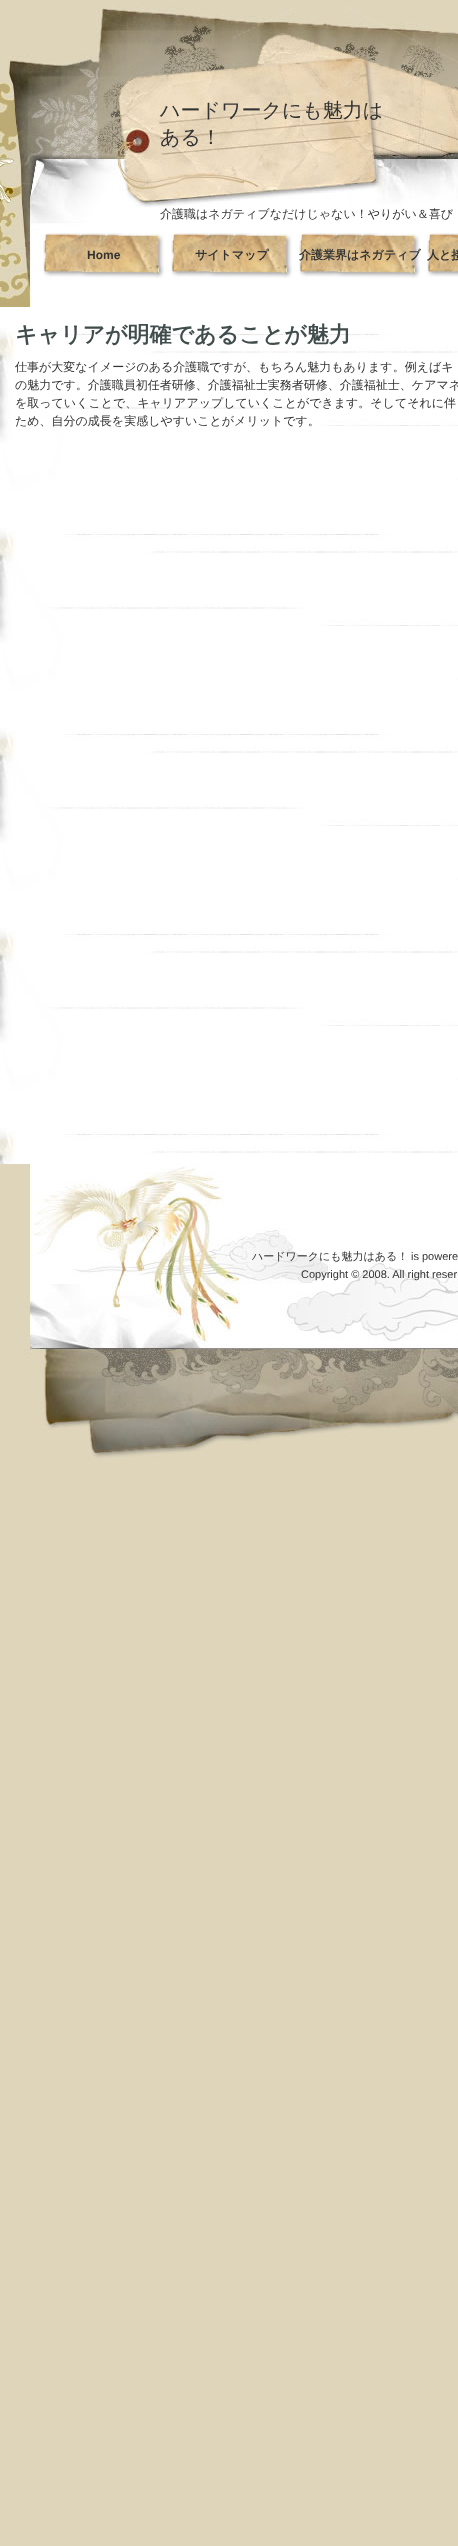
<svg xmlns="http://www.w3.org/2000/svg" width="458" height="2546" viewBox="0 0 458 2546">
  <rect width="100%" height="100%" fill="#ded5ba"/>
  <image x="0" y="7" width="458" height="300" href="img1.png"/>
  <text x="160" y="117" font-family="WenQuanYi Zen Hei" font-size="20" font-weight="500" fill="#333333">ハードワークにも魅力は</text>
  <text x="160" y="144" font-family="WenQuanYi Zen Hei" font-size="20" font-weight="500" fill="#333333">ある！</text>
  <text x="160" y="218" font-family="WenQuanYi Zen Hei" font-size="12" font-weight="500" fill="#333333">介護職はネガティブなだけじゃない！やりがい＆喜び</text>
  <image x="43" y="233" width="122" height="45" href="img2.png"/>
  <text x="87" y="259" font-family="Liberation Sans" font-size="12" font-weight="bold" fill="#333333">Home</text>
  <image x="171" y="233" width="122" height="45" href="img2.png"/>
  <text x="195" y="259" font-family="WenQuanYi Zen Hei" font-size="12" font-weight="bold" fill="#333333">サイトマップ</text>
  <image x="299" y="233" width="122" height="45" href="img2.png"/>
  <text x="299" y="259" font-family="WenQuanYi Zen Hei" font-size="12" font-weight="bold" fill="#333333">介護業界はネガティブ</text>
  <image x="427" y="233" width="31" height="44" href="img3.png"/>
  <text x="427" y="259" font-family="WenQuanYi Zen Hei" font-size="12" font-weight="bold" fill="#333333">人と接</text>
  <image x="0" y="307" width="458" height="857" href="img4.png"/>
  <text x="15" y="342" font-family="WenQuanYi Zen Hei" font-size="22" font-weight="bold" fill="#414d4c">キャリアが明確であることが魅力</text>
  <text x="15" y="371" font-family="WenQuanYi Zen Hei" font-size="12" font-weight="500" fill="#333333">仕事が大変なイメージのある介護職ですが、もちろん魅力もあります。例えばキ</text>
  <text x="15" y="389" font-family="WenQuanYi Zen Hei" font-size="12" font-weight="500" fill="#333333">の魅力です。介護職員初任者研修、介護福祉士実務者研修、介護福祉士、ケアマネ</text>
  <text x="15" y="407" font-family="WenQuanYi Zen Hei" font-size="12" font-weight="500" fill="#333333">を取っていくことで、キャリアアップしていくことができます。そしてそれに伴</text>
  <text x="15" y="425" font-family="WenQuanYi Zen Hei" font-size="12" font-weight="500" fill="#333333">ため、自分の成長を実感しやすいことがメリットです。</text>
  <image x="24" y="1164" width="434" height="295" href="img5.png"/>
  <text x="252" y="1260" font-family="WenQuanYi Zen Hei" font-size="11" font-weight="500" fill="#333333">ハードワークにも魅力はある！</text>
  <text x="411" y="1260" font-family="Liberation Sans" font-size="11" fill="#333333">is powere</text>
  <text x="301" y="1278" font-family="Liberation Sans" font-size="11" fill="#333333">Copyright © 2008. All right reser</text>
</svg>
